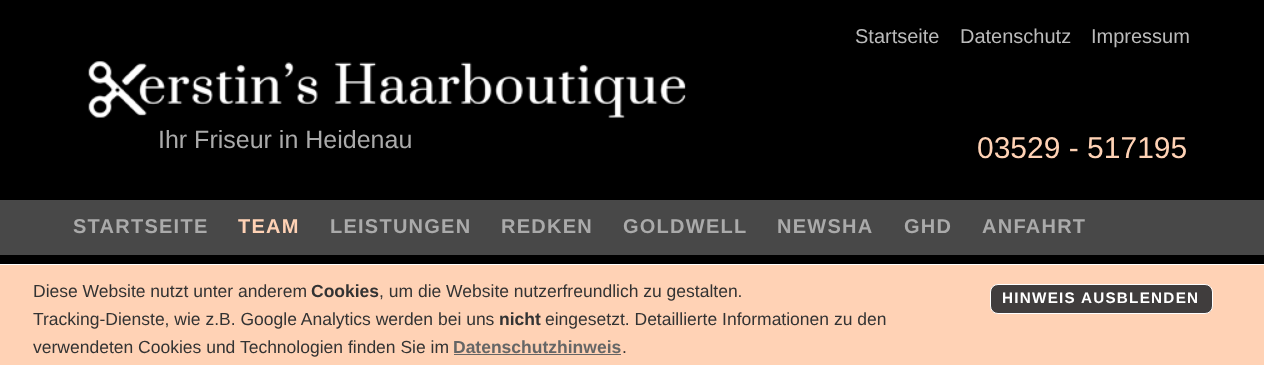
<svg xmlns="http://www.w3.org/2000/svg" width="1264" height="365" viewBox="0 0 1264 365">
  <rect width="100%" height="100%" fill="#000000"/>
  <text x="855" y="43" font-family="Liberation Sans" font-size="20" fill="#bbbbbb">Startseite</text>
  <text x="960" y="43" font-family="Liberation Sans" font-size="20" fill="#bbbbbb">Datenschutz</text>
  <text x="1091" y="43" font-family="Liberation Sans" font-size="20" fill="#bbbbbb">Impressum</text>
  <image x="88" y="61" width="598" height="57" href="img1.png"/>
  <text x="158" y="148" font-family="Liberation Sans" font-size="25" fill="#aaaaaa">Ihr Friseur in Heidenau</text>
  <text x="977" y="158" font-family="Liberation Sans" font-size="30" fill="#ffd2b5">03529 - 517195</text>
  <rect x="0" y="200" width="1264" height="55" fill="#484848"/>
  <text x="73" y="233" font-family="Liberation Sans" font-size="20" font-weight="bold" letter-spacing="1.25" fill="#aaaaaa">STARTSEITE</text>
  <text x="238" y="233" font-family="Liberation Sans" font-size="20" font-weight="bold" letter-spacing="1.25" fill="#ffd2b5">TEAM</text>
  <text x="330" y="233" font-family="Liberation Sans" font-size="20" font-weight="bold" letter-spacing="1.25" fill="#aaaaaa">LEISTUNGEN</text>
  <text x="501" y="233" font-family="Liberation Sans" font-size="20" font-weight="bold" letter-spacing="1.25" fill="#aaaaaa">REDKEN</text>
  <text x="623" y="233" font-family="Liberation Sans" font-size="20" font-weight="bold" letter-spacing="1.25" fill="#aaaaaa">GOLDWELL</text>
  <text x="777" y="233" font-family="Liberation Sans" font-size="20" font-weight="bold" letter-spacing="1.25" fill="#aaaaaa">NEWSHA</text>
  <text x="904" y="233" font-family="Liberation Sans" font-size="20" font-weight="bold" letter-spacing="1.25" fill="#aaaaaa">GHD</text>
  <text x="982" y="233" font-family="Liberation Sans" font-size="20" font-weight="bold" letter-spacing="1.25" fill="#aaaaaa">ANFAHRT</text>
  <rect x="0" y="265" width="1264" height="100" fill="#ffd2b5"/>
  <rect x="0" y="264" width="1264" height="1" fill="#ffffff"/>
  <text x="33" y="297" font-family="Liberation Sans" font-size="17.5" fill="#333333">Diese Website nutzt unter anderem</text>
  <text x="311" y="297" font-family="Liberation Sans" font-size="17.5" font-weight="bold" fill="#333333">Cookies</text>
  <text x="379" y="297" font-family="Liberation Sans" font-size="17.5" fill="#333333">, um die Website nutzerfreundlich zu gestalten.</text>
  <text x="33" y="325" font-family="Liberation Sans" font-size="17.5" fill="#333333">Tracking-Dienste, wie z.B. Google Analytics werden bei uns</text>
  <text x="499" y="325" font-family="Liberation Sans" font-size="17.5" font-weight="bold" fill="#333333">nicht</text>
  <text x="545" y="325" font-family="Liberation Sans" font-size="17.5" fill="#333333">eingesetzt. Detaillierte Informationen zu den</text>
  <text x="33" y="353" font-family="Liberation Sans" font-size="17.5" fill="#333333">verwendeten Cookies und Technologien finden Sie im</text>
  <text x="453" y="353" font-family="Liberation Sans" font-size="17.5" font-weight="bold" fill="#666666">Datenschutzhinweis</text>
  <rect x="454" y="354" width="167" height="1" fill="#666666"/>
  <text x="622" y="353" font-family="Liberation Sans" font-size="17.5" fill="#333333">.</text>
  <rect x="990.5" y="284.5" width="222" height="29" rx="7.5" fill="#403d3d" stroke="#ffffff"/>
  <text x="1002" y="303" font-family="Liberation Sans" font-size="15.25" font-weight="bold" letter-spacing="1.25" fill="#ffffff">HINWEIS AUSBLENDEN</text>
</svg>
